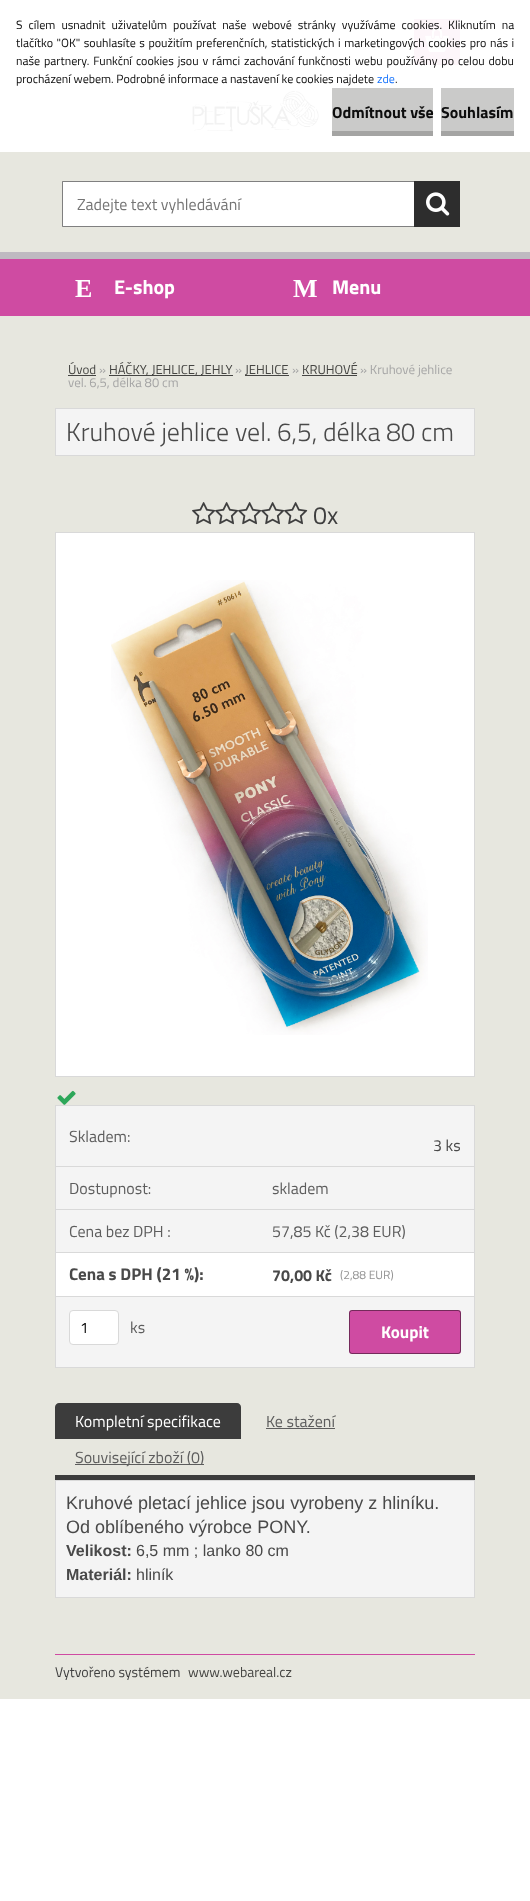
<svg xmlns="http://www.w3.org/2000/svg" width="530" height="1901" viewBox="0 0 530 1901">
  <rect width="100%" height="100%" fill="#ffffff"/>
  <rect x="414" y="19" width="46" height="46" fill="#fdf6fa"/>
  <image x="425" y="28" width="24" height="24" href="img3.png"/>
  <text x="16" y="29" word-spacing="3.4" font-family="Titillium Web" font-size="12" fill="#0d0d0d">S cílem usnadnit uživatelům používat naše webové stránky využíváme cookies. Kliknutím na</text>
  <text x="16" y="47" word-spacing="0.9" font-family="Titillium Web" font-size="12" fill="#0d0d0d">tlačítko "OK" souhlasíte s použitím preferenčních, statistických i marketingových cookies pro nás i</text>
  <text x="16" y="65" word-spacing="1.25" font-family="Titillium Web" font-size="12" fill="#0d0d0d">naše partnery. Funkční cookies jsou v rámci zachování funkčnosti webu používány po celou dobu</text>
  <text x="16" y="83" font-family="Titillium Web" font-size="12" fill="#0d0d0d">procházení webem. Podrobné informace a nastavení ke cookies najdete</text>
  <text x="377" y="83" font-family="Titillium Web" font-size="12" fill="#1874fc">zde</text>
  <text x="395" y="83" font-family="Titillium Web" font-size="12" fill="#0d0d0d">.</text>
  <rect x="332" y="88" width="101" height="43" fill="#cacac9"/>
  <rect x="332" y="131" width="101" height="5" fill="#a4a4a3"/>
  <text x="332" y="118" font-family="Titillium Web" font-size="16" font-weight="bold" fill="#0d0d0d">Odmítnout vše</text>
  <rect x="441" y="88" width="73" height="43" fill="#cacac9"/>
  <rect x="441" y="131" width="73" height="5" fill="#a4a4a3"/>
  <text x="441" y="118" font-family="Titillium Web" font-size="16" font-weight="bold" fill="#0d0d0d">Souhlasím</text>
  <rect x="0" y="259" width="530" height="57" fill="#cf4ba2"/>
  <rect x="0" y="152" width="530" height="100" fill="#e7e7df"/>
  <rect x="0" y="252" width="530" height="7" fill="#bfbac1"/>
  <image x="192" y="91" width="127" height="41" href="img1.png"/>
  <rect x="62" y="181" width="352" height="46" fill="#ffffff"/>
  <path d="M62 181H414V182H63Z" fill="#808080"/>
  <path d="M414 227H62L63 226H414Z" fill="#808080"/>
  <path d="M62 227V181L63 182V226Z" fill="#000000" fill-opacity="0.5"/>
  <text x="77" y="210" font-family="Titillium Web" font-size="16" fill="#757575">Zadejte text vyhledávání</text>
  <rect x="414" y="181" width="46" height="46" fill="#2d2d2d"/>
  <image x="426" y="192" width="24" height="24" href="img2.png"/>
  <rect x="0" y="316" width="530" height="1383" fill="#e7e7df"/>
  <rect x="302" y="375" width="55" height="1" fill="#454543"/>
  <rect x="245" y="375" width="44" height="1" fill="#454543"/>
  <rect x="109" y="375" width="124" height="1" fill="#454543"/>
  <rect x="68" y="375" width="28" height="1" fill="#454543"/>
  <text x="75" y="297" font-family="Liberation Serif" font-size="26" font-weight="bold" fill="#ffffff">E</text>
  <text x="114" y="294" font-family="Titillium Web" font-size="20" font-weight="bold" fill="#ffffff">E-shop</text>
  <text x="293" y="297" font-family="Liberation Serif" font-size="26" font-weight="bold" fill="#ffffff">M</text>
  <text x="332" y="294" font-family="Titillium Web" font-size="20" font-weight="bold" fill="#ffffff">Menu</text>
  <text x="68" y="374" font-family="Titillium Web" font-size="13" fill="#454542">Úvod</text>
  <text x="99" y="374" font-family="Titillium Web" font-size="13" fill="#a5a5a5">»</text>
  <text x="109" y="374" font-family="Titillium Web" font-size="13" fill="#454542">HÁČKY, JEHLICE, JEHLY</text>
  <text x="235" y="374" font-family="Titillium Web" font-size="13" fill="#a5a5a5">»</text>
  <text x="245" y="374" font-family="Titillium Web" font-size="13" fill="#454542">JEHLICE</text>
  <text x="292" y="374" font-family="Titillium Web" font-size="13" fill="#a5a5a5">»</text>
  <text x="302" y="374" font-family="Titillium Web" font-size="13" fill="#454542">KRUHOVÉ</text>
  <text x="360" y="374" font-family="Titillium Web" font-size="13" fill="#a5a5a5">» Kruhové jehlice</text>
  <text x="68" y="387" font-family="Titillium Web" font-size="13" fill="#a5a5a5">vel. 6,5, délka 80 cm</text>
  <rect x="55.5" y="408.5" width="419" height="47" fill="#f4f4f4" stroke="#d9d9d9"/>
  <text x="66" y="441" font-family="Titillium Web" font-size="26" font-weight="300" fill="#494949">Kruhové jehlice vel. 6,5, délka 80 cm</text>
  <image x="192" y="502" width="24" height="23" href="img4.png"/>
  <image x="215" y="502" width="24" height="23" href="img5.png"/>
  <image x="238" y="502" width="24" height="23" href="img6.png"/>
  <image x="261" y="502" width="24" height="23" href="img7.png"/>
  <image x="284" y="502" width="24" height="23" href="img8.png"/>
  <text x="313" y="524" font-family="Titillium Web" font-size="25" fill="#3f3f3f">0x</text>
  <rect x="55.5" y="532.5" width="419" height="544" fill="none" stroke="#d9d9d9"/>
  <rect x="56" y="533" width="418" height="543" fill="#ffffff"/>
  <image x="111" y="580" width="317" height="455" href="img9.png"/>
  <image x="57" y="1090" width="19" height="15" href="img10.png"/>
  <rect x="56" y="1253" width="418" height="43" fill="#ffffff"/>
  <rect x="55" y="1105" width="420" height="1" fill="#d9d9d9"/>
  <rect x="474" y="1105" width="1" height="263" fill="#d9d9d9"/>
  <rect x="55" y="1367" width="420" height="1" fill="#d9d9d9"/>
  <rect x="55" y="1105" width="1" height="263" fill="#d9d9d9"/>
  <rect x="56" y="1106" width="418" height="60" fill="#f4f4f4"/>
  <text x="69" y="1142" font-family="Titillium Web" font-size="16" fill="#5d5d5d">Skladem:</text>
  <text x="433" y="1151" font-family="Titillium Web" font-size="16" fill="#494949">3 ks</text>
  <rect x="56" y="1167" width="418" height="42" fill="#f4f4f4"/>
  <rect x="55" y="1166" width="420" height="1" fill="#d9d9d9"/>
  <text x="69" y="1194" font-family="Titillium Web" font-size="16" fill="#5d5d5d">Dostupnost:</text>
  <text x="272" y="1194" font-family="Titillium Web" font-size="16" fill="#5d5d5d">skladem</text>
  <rect x="56" y="1210" width="418" height="42" fill="#f4f4f4"/>
  <rect x="55" y="1209" width="420" height="1" fill="#d9d9d9"/>
  <text x="69" y="1237" font-family="Titillium Web" font-size="16" fill="#5d5d5d">Cena bez DPH :</text>
  <text x="272" y="1237" font-family="Titillium Web" font-size="16" fill="#5d5d5d">57,85 Kč (2,38 EUR)</text>
  <rect x="55" y="1252" width="420" height="1" fill="#d9d9d9"/>
  <text x="69" y="1280" font-family="Titillium Web" font-size="17" font-weight="bold" fill="#494949">Cena s DPH (21 %):</text>
  <text x="272" y="1281" font-family="Titillium Web" font-size="16" font-weight="bold" fill="#494949">70,00 Kč</text>
  <text x="340" y="1279" font-family="Titillium Web" font-size="12" fill="#949494">(2,88 EUR)</text>
  <rect x="56" y="1297" width="418" height="70" fill="#f4f4f4"/>
  <rect x="55" y="1296" width="420" height="1" fill="#d9d9d9"/>
  <rect x="69.5" y="1310.5" width="49" height="34" rx="3.5" fill="#ffffff" stroke="#d9d9d9"/>
  <text x="80" y="1333" font-family="Titillium Web" font-size="15" fill="#000000">1</text>
  <text x="130" y="1333" font-family="Titillium Web" font-size="16" fill="#5d5d5d">ks</text>
  <rect x="349" y="1310" width="112" height="44" rx="3" fill="#cf4ba2"/>
  <rect x="349.5" y="1310.5" width="111" height="43" rx="2.5" fill="none" stroke="#000000" stroke-opacity="0.44"/>
  <text x="381" y="1338" font-family="Titillium Web" font-size="17" font-weight="bold" fill="#ffffff">Koupit</text>
  <rect x="55" y="1475" width="420" height="5" fill="#3c3c3c"/>
  <path d="M59 1403H237C239 1403 241 1405 241 1407V1439H55V1407C55 1405 57 1403 59 1403Z" fill="#3c3c3c"/>
  <text x="75" y="1427" font-family="Titillium Web" font-size="16" fill="#ffffff">Kompletní specifikace</text>
  <text x="266" y="1427" font-family="Titillium Web" font-size="16" fill="#5d5d5d">Ke stažení</text>
  <rect x="266" y="1428" width="69" height="1" fill="#5d5d5d"/>
  <rect x="75" y="1464" width="129" height="1" fill="#5d5d5d"/>
  <text x="75" y="1463" font-family="Titillium Web" font-size="16" fill="#5d5d5d">Související zboží (0)</text>
  <rect x="55.5" y="1480.5" width="419" height="117" fill="#f4f4f4" stroke="#d9d9d9"/>
  <text x="66" y="1509" font-family="Liberation Sans" font-size="18" fill="#494949">Kruhové pletací jehlice jsou vyrobeny z hliníku.</text>
  <text x="66" y="1533" font-family="Liberation Sans" font-size="18" fill="#494949">Od oblíbeného výrobce PONY.</text>
  <text x="66" y="1556" font-family="Liberation Sans" font-size="16" font-weight="bold" fill="#494949">Velikost:</text>
  <text x="136" y="1556" font-family="Liberation Sans" font-size="16" fill="#494949">6,5 mm ; lanko 80 cm</text>
  <text x="66" y="1580" font-family="Liberation Sans" font-size="16" font-weight="bold" fill="#494949">Materiál:</text>
  <text x="136" y="1580" font-family="Liberation Sans" font-size="16" fill="#494949">hliník</text>
  <rect x="55" y="1654" width="420" height="1" fill="#cf4ba2"/>
  <text x="55" y="1677" font-family="Titillium Web" font-size="14" fill="#3f3f3f">Vytvořeno systémem</text>
  <text x="188" y="1677" font-family="Titillium Web" font-size="14" fill="#454542">www.webareal.cz</text>
</svg>
